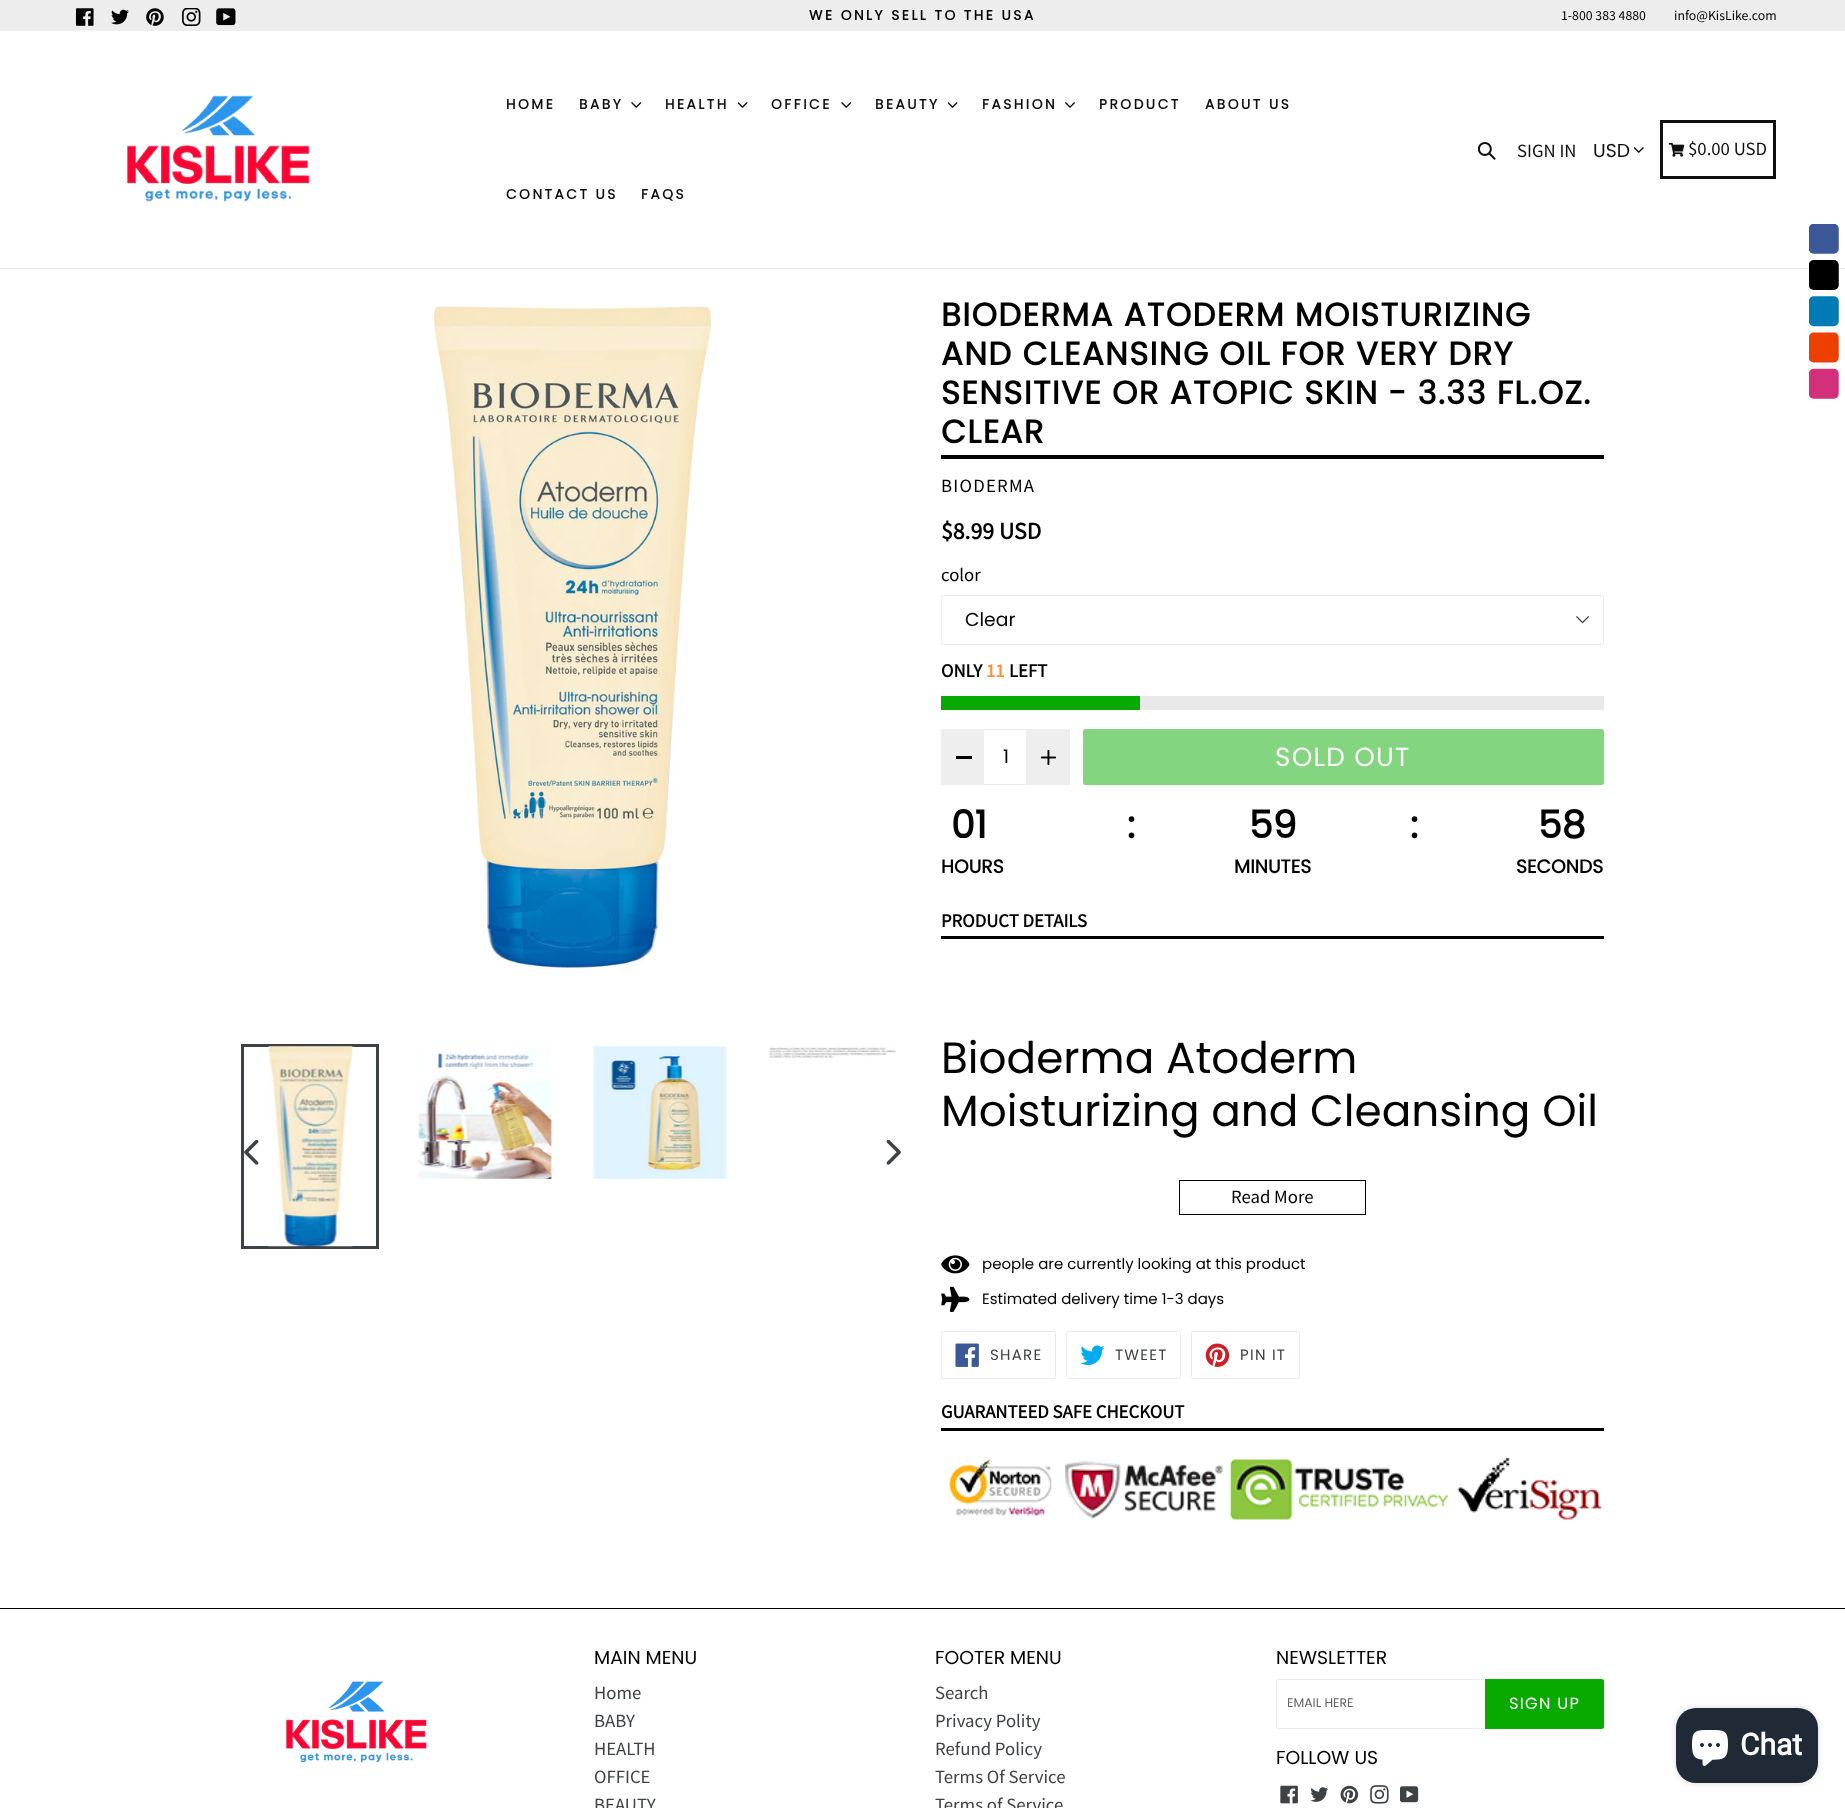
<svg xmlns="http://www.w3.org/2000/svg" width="1845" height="1808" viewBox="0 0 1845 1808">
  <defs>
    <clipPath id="clip1"><rect x="1288" y="1694" width="187" height="20"/></clipPath>
    <filter id="blur1" x="-50%" y="-200%" width="200%" height="500%"><feGaussianBlur stdDeviation="3"/></filter>
  </defs>
  <rect width="100%" height="100%" fill="#ffffff"/>
  <rect x="0" y="0" width="1845" height="31" fill="#ededed"/>
  <image x="75" y="8" width="19" height="18" href="img1.png"/>
  <image x="111" y="9" width="18" height="16" href="img2.png"/>
  <image x="146" y="8" width="18" height="18" href="img3.png"/>
  <image x="182" y="8" width="19" height="18" href="img4.png"/>
  <image x="216" y="8" width="20" height="18" href="img5.png"/>
  <text x="809" y="20" font-family="Poppins" font-size="13.75" font-weight="bold" letter-spacing="2.5" fill="#000000">WE ONLY SELL TO THE USA</text>
  <text x="1561" y="20" font-family="Source Sans Pro" font-size="13.75" fill="#000000">1-800 383 4880</text>
  <text x="1674" y="20" font-family="Source Sans Pro" font-size="13.75" fill="#000000">info@KisLike.com</text>
  <rect x="0" y="268" width="1845" height="1" fill="#ebebeb"/>
  <image x="126" y="95" width="184" height="107" href="img6.png"/>
  <text x="506" y="109" font-family="Poppins" font-size="13.75" font-weight="bold" letter-spacing="2.5" fill="#0f0f0f">HOME</text>
  <text x="579" y="109" font-family="Poppins" font-size="13.75" font-weight="bold" letter-spacing="2.5" fill="#0f0f0f">BABY</text>
  <image x="631" y="102" width="10" height="6" href="img7.png"/>
  <text x="665" y="109" font-family="Poppins" font-size="13.75" font-weight="bold" letter-spacing="2.5" fill="#0f0f0f">HEALTH</text>
  <image x="738" y="102" width="10" height="6" href="img8.png"/>
  <text x="771" y="109" font-family="Poppins" font-size="13.75" font-weight="bold" letter-spacing="2.5" fill="#0f0f0f">OFFICE</text>
  <image x="841" y="102" width="10" height="6" href="img7.png"/>
  <text x="875" y="109" font-family="Poppins" font-size="13.75" font-weight="bold" letter-spacing="2.5" fill="#0f0f0f">BEAUTY</text>
  <image x="948" y="102" width="10" height="6" href="img8.png"/>
  <text x="982" y="109" font-family="Poppins" font-size="13.75" font-weight="bold" letter-spacing="2.5" fill="#0f0f0f">FASHION</text>
  <image x="1065" y="102" width="10" height="6" href="img9.png"/>
  <text x="1099" y="109" font-family="Poppins" font-size="13.75" font-weight="bold" letter-spacing="2.5" fill="#0f0f0f">PRODUCT</text>
  <text x="1205" y="109" font-family="Poppins" font-size="13.75" font-weight="bold" letter-spacing="2.5" fill="#0f0f0f">ABOUT US</text>
  <text x="506" y="199" font-family="Poppins" font-size="13.75" font-weight="bold" letter-spacing="2.5" fill="#0f0f0f">CONTACT US</text>
  <text x="641" y="199" font-family="Poppins" font-size="13.75" font-weight="bold" letter-spacing="2.5" fill="#0f0f0f">FAQS</text>
  <image x="1478" y="142" width="18" height="18" href="img10.png"/>
  <text x="1517" y="157" font-family="Source Sans Pro" font-size="18.75" fill="#0f0f0f">SIGN IN</text>
  <text x="1593" y="157" font-family="Poppins" font-size="18.75" fill="#0f0f0f">USD</text>
  <image x="1634" y="147" width="10" height="6" href="img11.png"/>
  <rect x="1661.5" y="121.5" width="113" height="56" fill="none" stroke="#0f0f0f" stroke-width="3"/>
  <image x="1668" y="143" width="17" height="14" href="img12.png"/>
  <text x="1688" y="155" font-family="Source Sans Pro" font-size="18.75" fill="#0f0f0f">$0.00 USD</text>
  <image x="434" y="306" width="277" height="662" href="img13.png"/>
  <rect x="242.5" y="1045.5" width="135" height="202" fill="none" stroke="#3d4246" stroke-width="3"/>
  <image x="268" y="1046" width="85" height="201" href="img14.png"/>
  <image x="418" y="1046" width="134" height="133" href="img15.png"/>
  <image x="593" y="1046" width="134" height="133" href="img16.png"/>
  <image x="769" y="1046" width="127" height="12" href="img17.png"/>
  <image x="244" y="1140" width="15" height="25" href="img18.png"/>
  <image x="886" y="1140" width="15" height="25" href="img19.png"/>
  <rect x="941" y="455" width="663" height="4" fill="#000000"/>
  <text x="941" y="326" font-family="Poppins" font-size="32.5" font-weight="bold" letter-spacing="1.25" fill="#000000">BIODERMA ATODERM MOISTURIZING</text>
  <text x="941" y="365" font-family="Poppins" font-size="32.5" font-weight="bold" letter-spacing="1.25" fill="#000000">AND CLEANSING OIL FOR VERY DRY</text>
  <text x="941" y="404" font-family="Poppins" font-size="32.5" font-weight="bold" letter-spacing="1.25" fill="#000000">SENSITIVE OR ATOPIC SKIN - 3.33 FL.OZ.</text>
  <text x="941" y="443" font-family="Poppins" font-size="32.5" font-weight="bold" letter-spacing="1.25" fill="#000000">CLEAR</text>
  <text x="941" y="492" font-family="Source Sans Pro" font-size="18.75" letter-spacing="1.25" fill="#000000">BIODERMA</text>
  <text x="941" y="539" font-family="Source Sans Pro" font-size="23.75" font-weight="bold" fill="#000000">$8.99 USD</text>
  <text x="941" y="581" font-family="Source Sans Pro" font-size="18.75" fill="#000000">color</text>
  <image x="1576" y="616" width="13" height="8" href="img20.png"/>
  <rect x="941.5" y="595.5" width="662" height="49" rx="2" fill="none" stroke="#ebebeb"/>
  <text x="965" y="626" font-family="Poppins" font-size="18.75" fill="#000000">Clear</text>
  <text x="941" y="677" font-family="Source Sans Pro" font-size="18.75" font-weight="bold" fill="#000000">ONLY</text>
  <text x="986" y="677" font-family="Source Sans Pro" font-size="18.75" font-weight="bold" fill="#ff8e3b">11</text>
  <text x="1009" y="677" font-family="Source Sans Pro" font-size="18.75" font-weight="bold" fill="#000000">LEFT</text>
  <rect x="1140" y="696" width="464" height="14" fill="#eae9e9"/>
  <rect x="941" y="696" width="199" height="14" fill="#08aa00"/>
  <rect x="941" y="729" width="43" height="56" fill="#eeeeee"/>
  <rect x="956" y="756" width="16" height="3" fill="#000000"/>
  <rect x="984" y="729" width="44" height="1" fill="#ebebeb"/>
  <rect x="984" y="784" width="44" height="1" fill="#ebebeb"/>
  <text x="1003" y="763" font-family="Poppins" font-size="18.75" fill="#000000">1</text>
  <rect x="1026" y="729" width="44" height="56" fill="#eeeeee"/>
  <image x="1040" y="749" width="17" height="17" href="img21.png"/>
  <rect x="1083" y="729" width="521" height="56" rx="2.5" fill="#84d580"/>
  <text x="1275" y="766" font-family="Poppins" font-size="26.25" letter-spacing="1.25" fill="#ffffff">SOLD OUT</text>
  <text x="951" y="838" font-family="Poppins" font-size="38" font-weight="bold" fill="#000000">01</text>
  <text x="1127" y="838" font-family="Poppins" font-size="38" font-weight="bold" fill="#000000">:</text>
  <text x="1249" y="838" font-family="Poppins" font-size="38" font-weight="bold" fill="#000000">59</text>
  <text x="1410" y="838" font-family="Poppins" font-size="38" font-weight="bold" fill="#000000">:</text>
  <text x="1538" y="838" font-family="Poppins" font-size="38" font-weight="bold" fill="#000000">58</text>
  <text x="941" y="873" font-family="Poppins" font-size="18.75" font-weight="bold" fill="#000000">HOURS</text>
  <text x="1234" y="873" font-family="Poppins" font-size="18.75" font-weight="bold" fill="#000000">MINUTES</text>
  <text x="1516" y="873" font-family="Poppins" font-size="18.75" font-weight="bold" fill="#000000">SECONDS</text>
  <rect x="941" y="936" width="663" height="3" fill="#000000"/>
  <text x="941" y="927" font-family="Source Sans Pro" font-size="18.75" font-weight="bold" fill="#000000">PRODUCT DETAILS</text>
  <text x="941" y="1073" font-family="Poppins" font-size="43.75" fill="#000000">Bioderma Atoderm</text>
  <text x="941" y="1126" font-family="Poppins" font-size="43.75" fill="#000000">Moisturizing and Cleansing Oil</text>
  <rect x="1179.5" y="1180.5" width="186" height="34" fill="none" stroke="#000000"/>
  <text x="1231" y="1203" font-family="Source Sans Pro" font-size="18.75" fill="#000000">Read More</text>
  <image x="941" y="1255" width="29" height="19" href="img22.png"/>
  <text x="982" y="1269" font-family="Poppins" font-size="15" fill="#000000">people are currently looking at this product</text>
  <image x="941" y="1286" width="29" height="26" href="img23.png"/>
  <text x="982" y="1304" font-family="Poppins" font-size="15" fill="#000000">Estimated delivery time 1-3 days</text>
  <rect x="941.5" y="1331.5" width="114" height="47" rx="2" fill="none" stroke="#ebebeb"/>
  <image x="955" y="1343" width="24" height="24" href="img24.png"/>
  <text x="990" y="1360" font-family="Poppins" font-size="15" letter-spacing="1.25" fill="#3d4246">SHARE</text>
  <rect x="1066.5" y="1331.5" width="114" height="47" rx="2" fill="none" stroke="#ebebeb"/>
  <image x="1080" y="1345" width="25" height="20" href="img25.png"/>
  <text x="1115" y="1360" font-family="Poppins" font-size="15" letter-spacing="1.25" fill="#3d4246">TWEET</text>
  <rect x="1191.5" y="1331.5" width="108" height="47" rx="2" fill="none" stroke="#ebebeb"/>
  <image x="1205" y="1343" width="25" height="24" href="img26.png"/>
  <text x="1240" y="1360" font-family="Poppins" font-size="15" letter-spacing="1.25" fill="#3d4246">PIN IT</text>
  <rect x="941" y="1428" width="663" height="3" fill="#000000"/>
  <text x="941" y="1418" font-family="Source Sans Pro" font-size="18.75" font-weight="bold" fill="#000000">GUARANTEED SAFE CHECKOUT</text>
  <image x="949" y="1457" width="654" height="63" href="img27.png"/>
  <rect x="0" y="1608" width="1845" height="1" fill="#000000"/>
  <image x="286" y="1681" width="141" height="82" href="img28.png"/>
  <text x="594" y="1664" font-family="Poppins" font-size="18.75" fill="#000000">MAIN MENU</text>
  <text x="594" y="1699" font-family="Source Sans Pro" font-size="18.75" fill="#3d4246">Home</text>
  <text x="594" y="1727" font-family="Source Sans Pro" font-size="18.75" fill="#3d4246">BABY</text>
  <text x="594" y="1755" font-family="Source Sans Pro" font-size="18.75" fill="#3d4246">HEALTH</text>
  <text x="594" y="1783" font-family="Source Sans Pro" font-size="18.75" fill="#3d4246">OFFICE</text>
  <text x="594" y="1811" font-family="Source Sans Pro" font-size="18.75" fill="#3d4246">BEAUTY</text>
  <text x="935" y="1664" font-family="Poppins" font-size="18.75" fill="#000000">FOOTER MENU</text>
  <text x="935" y="1699" font-family="Source Sans Pro" font-size="18.75" fill="#3d4246">Search</text>
  <text x="935" y="1727" font-family="Source Sans Pro" font-size="18.75" fill="#3d4246">Privacy Polity</text>
  <text x="935" y="1755" font-family="Source Sans Pro" font-size="18.75" fill="#3d4246">Refund Policy</text>
  <text x="935" y="1783" font-family="Source Sans Pro" font-size="18.75" fill="#3d4246">Terms Of Service</text>
  <text x="935" y="1811" font-family="Source Sans Pro" font-size="18.75" fill="#3d4246">Terms of Service</text>
  <text x="1276" y="1664" font-family="Poppins" font-size="18.75" fill="#000000">NEWSLETTER</text>
  <rect x="1278" y="1679" width="207" height="1" fill="#ebebeb"/>
  <rect x="1278" y="1728" width="207" height="1" fill="#ebebeb"/>
  <rect x="1276" y="1680" width="1" height="48" fill="#ebebeb"/>
  <g clip-path="url(#clip1)">
    <text x="1287" y="1707" font-family="Poppins" font-size="12.5" fill="#666666">EMAIL HERE</text>
  </g>
  <path d="M1485 1679H1601.5C1603 1679 1604 1680 1604 1681.5V1726.5C1604 1728 1603 1729 1601.5 1729H1485Z" fill="#08aa00"/>
  <text x="1509" y="1709" font-family="Poppins" font-size="16.25" letter-spacing="1.25" fill="#ffffff">SIGN UP</text>
  <text x="1276" y="1764" font-family="Poppins" font-size="18.75" fill="#000000">FOLLOW US</text>
  <image x="1280" y="1785" width="18" height="19" href="img29.png"/>
  <image x="1310" y="1787" width="19" height="15" href="img30.png"/>
  <image x="1340" y="1785" width="19" height="19" href="img31.png"/>
  <image x="1370" y="1785" width="19" height="19" href="img32.png"/>
  <image x="1400" y="1786" width="19" height="17" href="img33.png"/>
  <rect x="1676" y="1708" width="142" height="75" rx="20" fill="#000000" fill-opacity="0.15" filter="url(#blur1)"/>
  <rect x="1676" y="1708" width="142" height="75" rx="20" fill="#202a36"/>
  <image x="1692" y="1730" width="36" height="36" href="img34.png"/>
  <text x="1740" y="1755" font-family="Roboto" font-size="30" font-weight="bold" fill="#ffffff">Chat</text>
  <image x="1809" y="224" width="30" height="175" href="img35.png"/>
</svg>
